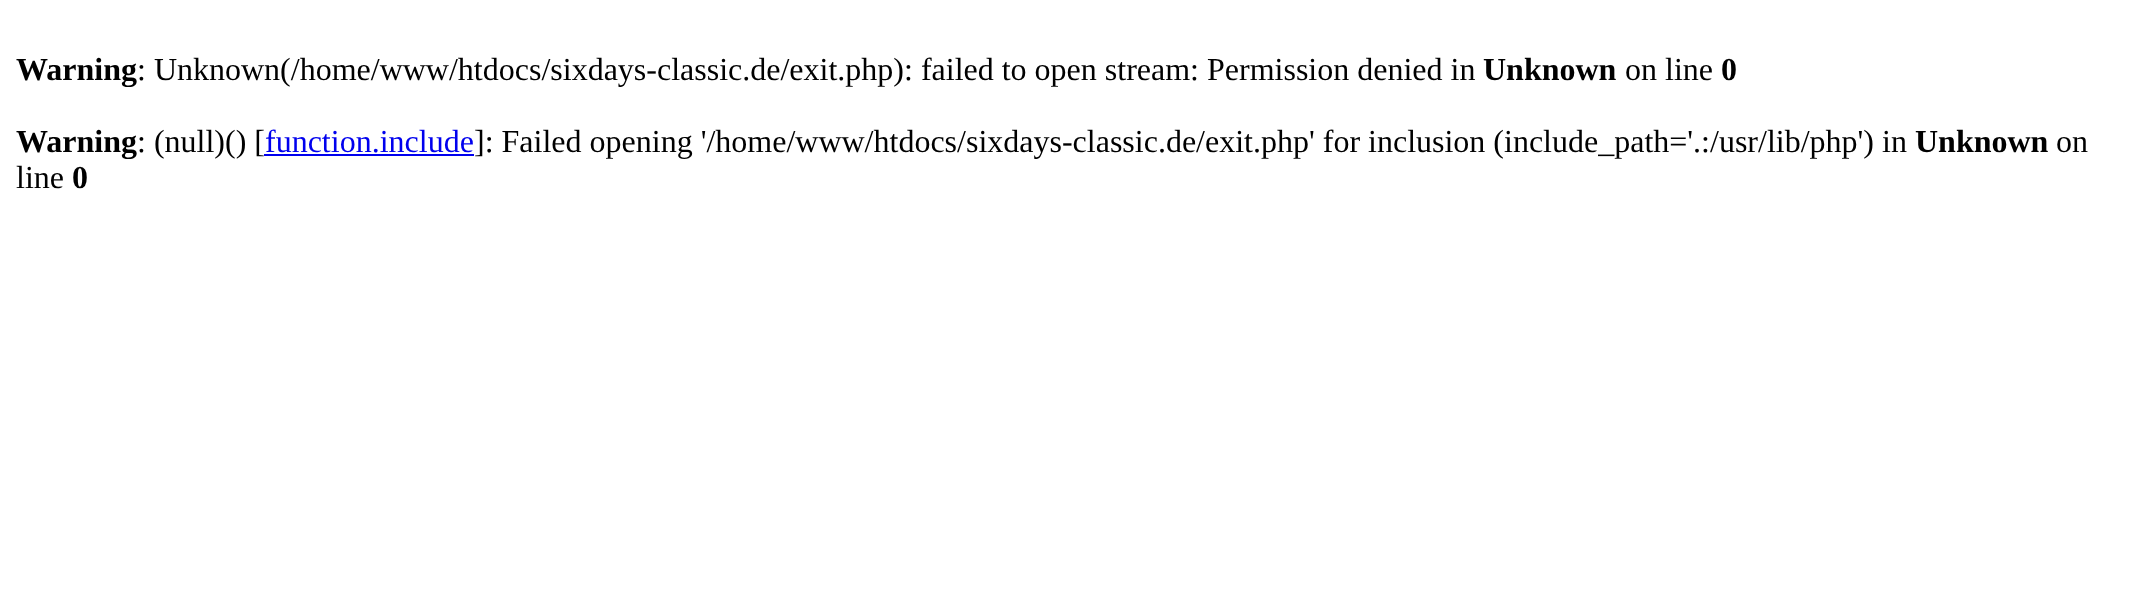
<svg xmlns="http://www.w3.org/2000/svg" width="2155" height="596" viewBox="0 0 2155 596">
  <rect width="100%" height="100%" fill="#ffffff"/>
  <text x="16" y="80" font-family="Liberation Serif" font-size="32" font-weight="bold" fill="#000000">Warning</text>
  <text x="137" y="80" font-family="Liberation Serif" font-size="32" fill="#000000">: Unknown(/home/www/htdocs/sixdays-classic.de/exit.php): failed to open stream: Permission denied in</text>
  <text x="1483" y="80" font-family="Liberation Serif" font-size="32" font-weight="bold" fill="#000000">Unknown</text>
  <text x="1625" y="80" font-family="Liberation Serif" font-size="32" fill="#000000">on line</text>
  <text x="1721" y="80" font-family="Liberation Serif" font-size="32" font-weight="bold" fill="#000000">0</text>
  <text x="16" y="152" font-family="Liberation Serif" font-size="32" font-weight="bold" fill="#000000">Warning</text>
  <text x="137" y="152" font-family="Liberation Serif" font-size="32" fill="#000000">: (null)() [</text>
  <text x="265" y="152" font-family="Liberation Serif" font-size="32" fill="#0000ee">function.include</text>
  <rect x="264" y="154" width="210" height="2" fill="#0000ee"/>
  <text x="474" y="152" font-family="Liberation Serif" font-size="32" fill="#000000">]: Failed opening '/home/www/htdocs/sixdays-classic.de/exit.php' for inclusion (include_path='.:/usr/lib/php') in</text>
  <text x="1915" y="152" font-family="Liberation Serif" font-size="32" font-weight="bold" fill="#000000">Unknown</text>
  <text x="2056" y="152" font-family="Liberation Serif" font-size="32" fill="#000000">on</text>
  <text x="16" y="188" font-family="Liberation Serif" font-size="32" fill="#000000">line</text>
  <text x="72" y="188" font-family="Liberation Serif" font-size="32" font-weight="bold" fill="#000000">0</text>
</svg>
